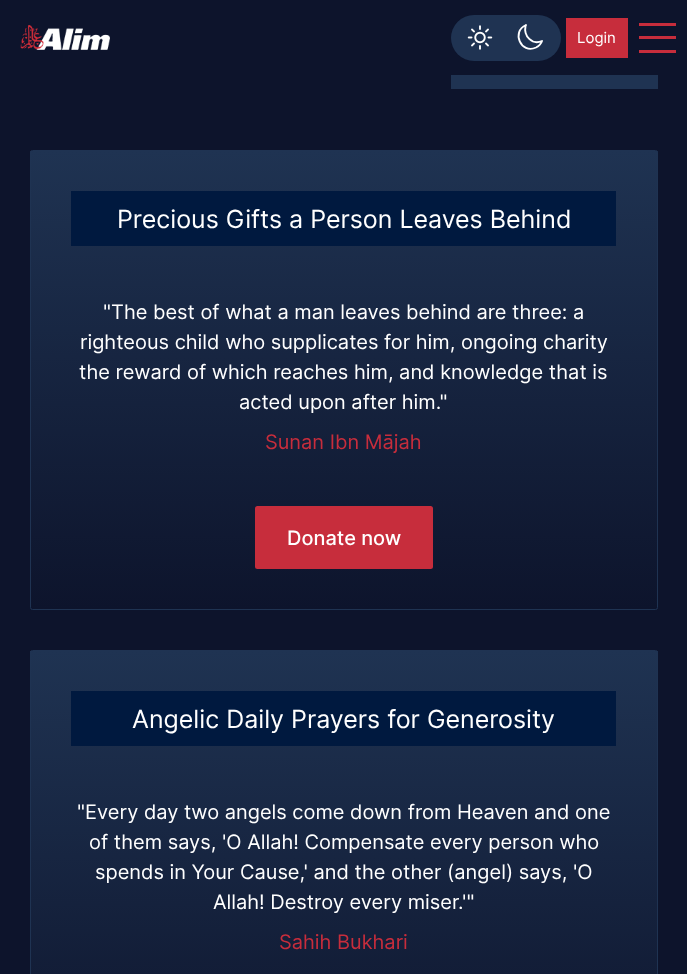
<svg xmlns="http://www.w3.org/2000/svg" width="687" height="974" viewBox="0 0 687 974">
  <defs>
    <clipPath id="clip1"><rect x="30" y="150" width="628" height="460" rx="2.5"/></clipPath>
    <linearGradient id="g1" gradientUnits="userSpaceOnUse" x1="344" y1="151" x2="344" y2="609"><stop offset="0" stop-color="#1f3352"/><stop offset="1" stop-color="#0d142c"/></linearGradient>
    <linearGradient id="g2" gradientUnits="userSpaceOnUse" x1="344" y1="651" x2="344" y2="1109"><stop offset="0" stop-color="#1f3352"/><stop offset="1" stop-color="#0d142c"/></linearGradient>
  </defs>
  <rect width="100%" height="100%" fill="#0d142c"/>
  <image x="20" y="25" width="90" height="25" href="img1.png"/>
  <rect x="451" y="15" width="110" height="46" rx="23" fill="#1f3352"/>
  <image x="467" y="25" width="26" height="25" href="img2.png"/>
  <path d="M542 41C532 45.5 523.5 36 525.5 26L526 25C511 31.5 521 54.5 536 47.5C539 46 541 44 542 41Z" fill="none" stroke="#ffffff" stroke-width="1.9" stroke-linecap="round" stroke-linejoin="round"/>
  <rect x="566" y="18" width="62" height="40" fill="#c72d3c"/>
  <text x="577" y="43" font-family="Inter" font-size="15" fill="#ffffff">Login</text>
  <rect x="639" y="23" width="37" height="3" fill="#c72d3c"/>
  <rect x="639" y="36" width="37" height="3" fill="#c72d3c"/>
  <rect x="639" y="50" width="37" height="3" fill="#c72d3c"/>
  <rect x="451" y="75" width="207" height="14" fill="#1f3352"/>
  <g clip-path="url(#clip1)">
    <rect x="30" y="151" width="628" height="458" fill="url(#g1)"/>
  </g>
  <rect x="30.5" y="150.5" width="627" height="459" rx="2" fill="none" stroke="#1f3352"/>
  <rect x="71" y="191" width="545" height="55" fill="#00193f"/>
  <text x="117" y="228" font-family="Inter" font-size="25" fill="#ffffff">Precious Gifts a Person Leaves Behind</text>
  <text x="103" y="319" font-family="Inter" font-size="20" fill="#ffffff">"The best of what a man leaves behind are three: a</text>
  <text x="80" y="349" font-family="Inter" font-size="20" fill="#ffffff">righteous child who supplicates for him, ongoing charity</text>
  <text x="79" y="379" font-family="Inter" font-size="20" fill="#ffffff">the reward of which reaches him, and knowledge that is</text>
  <text x="239" y="409" font-family="Inter" font-size="20" fill="#ffffff">acted upon after him."</text>
  <text x="265" y="449" font-family="Inter" font-size="20" fill="#c72d3c">Sunan Ibn Mājah</text>
  <rect x="255" y="506" width="178" height="63" rx="2.5" fill="#c72d3c"/>
  <text x="287" y="545" font-family="Inter" font-size="20" font-weight="500" fill="#ffffff">Donate now</text>
  <rect x="30" y="651" width="628" height="323" fill="url(#g2)"/>
  <rect x="30.5" y="650.5" width="627" height="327" rx="2" fill="none" stroke="#1f3352"/>
  <rect x="71" y="691" width="545" height="55" fill="#00193f"/>
  <text x="132" y="728" font-family="Inter" font-size="25" fill="#ffffff">Angelic Daily Prayers for Generosity</text>
  <text x="77" y="819" font-family="Inter" font-size="20" fill="#ffffff">"Every day two angels come down from Heaven and one</text>
  <text x="89" y="849" font-family="Inter" font-size="20" fill="#ffffff">of them says, 'O Allah! Compensate every person who</text>
  <text x="95" y="879" font-family="Inter" font-size="20" fill="#ffffff">spends in Your Cause,' and the other (angel) says, 'O</text>
  <text x="213" y="909" font-family="Inter" font-size="20" fill="#ffffff">Allah! Destroy every miser.'"</text>
  <text x="279" y="949" font-family="Inter" font-size="20" fill="#c72d3c">Sahih Bukhari</text>
</svg>
